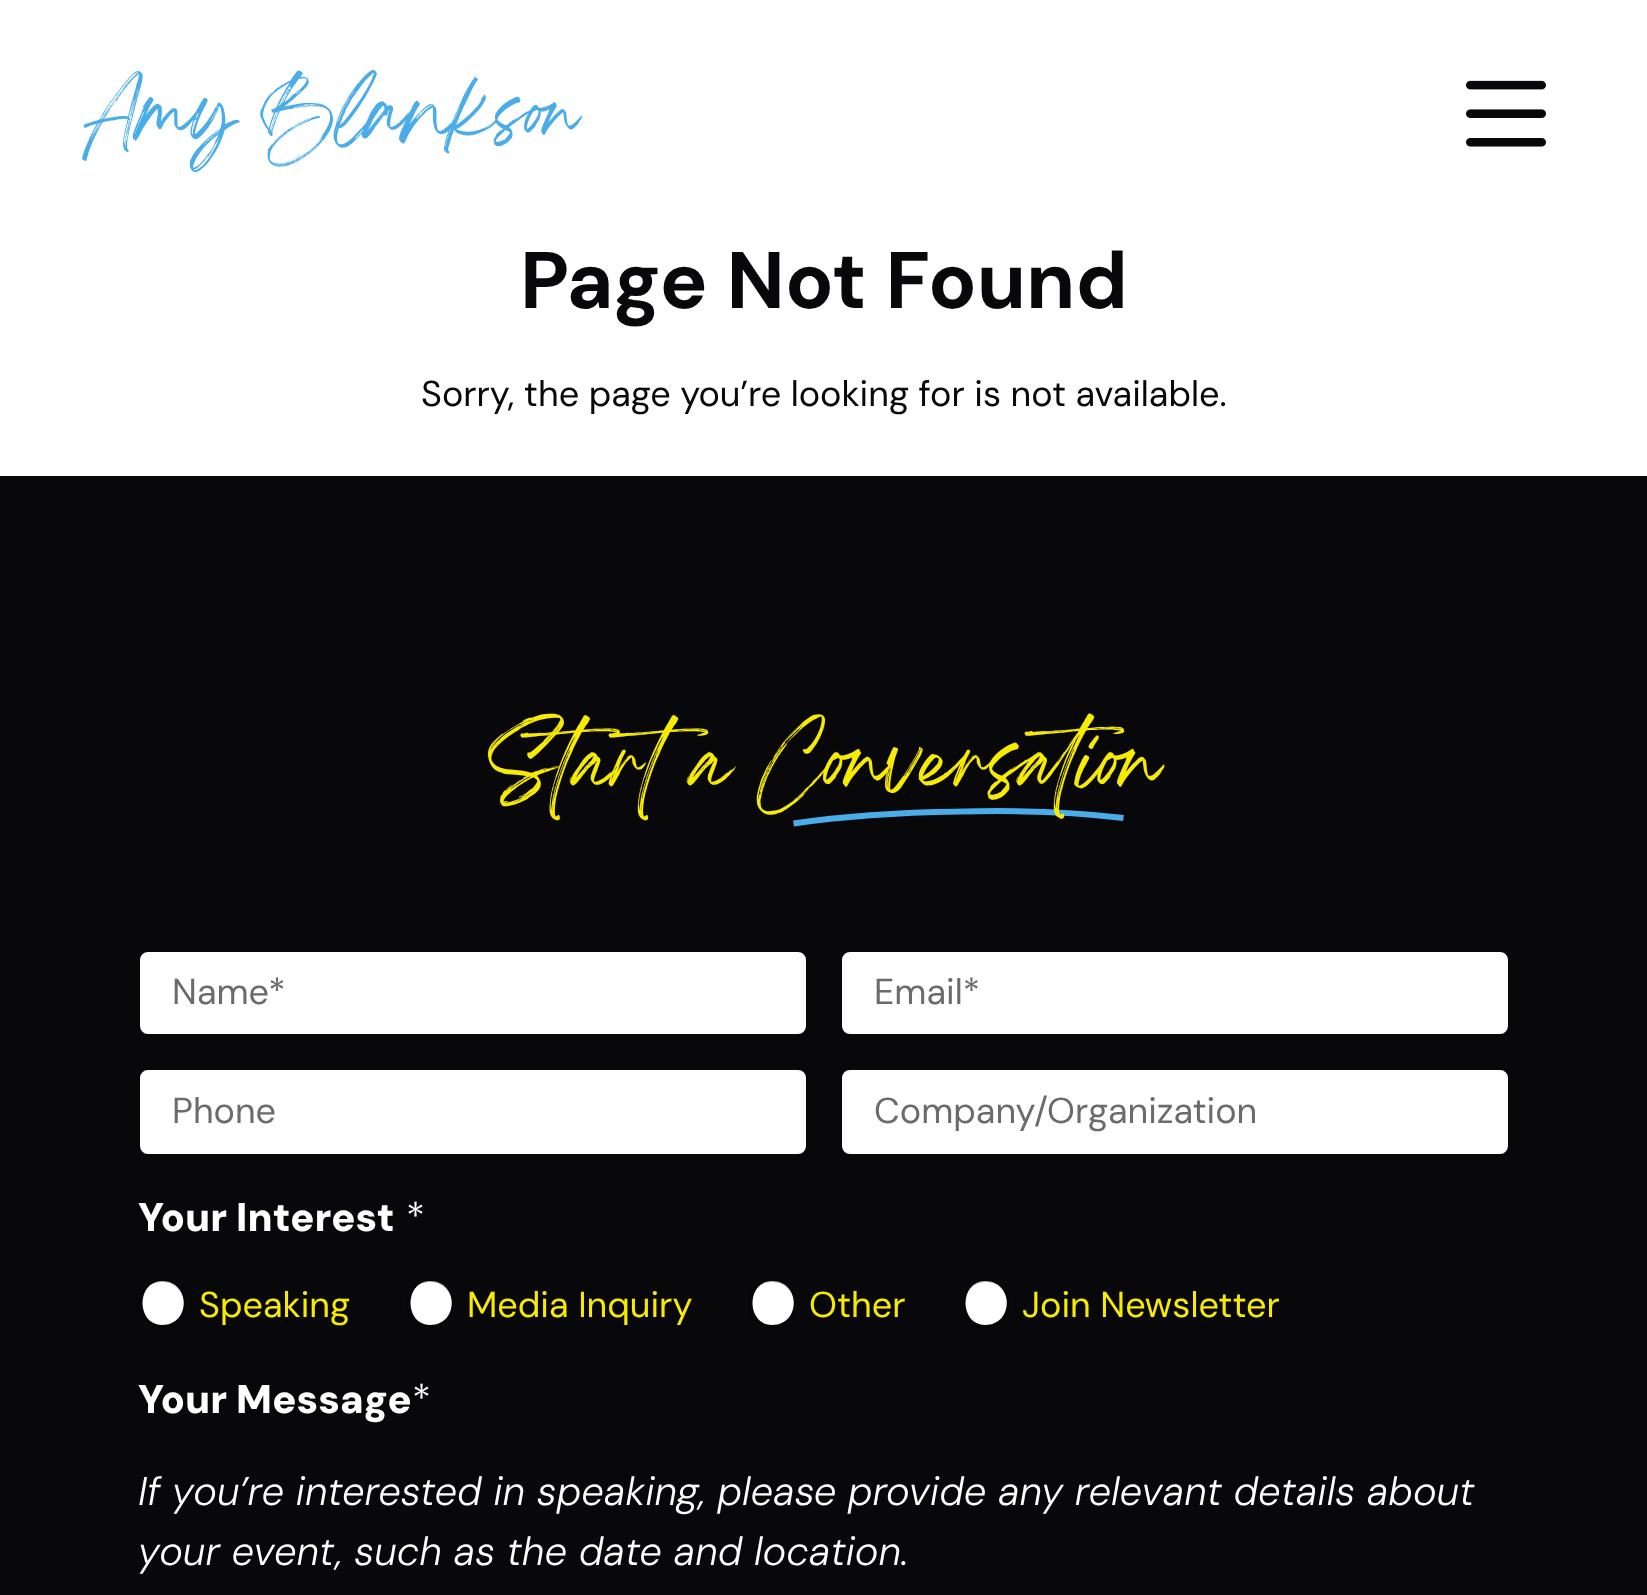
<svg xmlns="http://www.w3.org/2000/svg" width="1647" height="1595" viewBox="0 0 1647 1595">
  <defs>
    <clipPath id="clip1"><path d="M722 812.5L1194.5 804L1195 839.5L723 848Z"/></clipPath>
  </defs>
  <rect width="100%" height="100%" fill="#ffffff"/>
  <image x="82" y="70" width="500" height="102" href="img1.png"/>
  <image x="1466" y="80" width="80" height="67" href="img2.png"/>
  <text x="520" y="308" font-family="DM Sans" font-size="80" font-weight="bold" fill="#08080a">Page Not Found</text>
  <text x="421" y="406" font-family="DM Sans" font-size="36" fill="#08080a">Sorry, the page you’re looking for is not available.</text>
  <rect x="0" y="476" width="1647" height="1119" fill="#08080a"/>
  <text x="488" y="805" font-family="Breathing" font-size="71" font-weight="100" fill="#f7eb00">Start a</text>
  <g clip-path="url(#clip1)">
    <path d="M793.5 823.5C837.5 817 896.5 812.5 958.5 811.5C1020.5 810 1079.5 812.5 1123.5 818" fill="none" stroke="#4aace9" stroke-width="6"/>
  </g>
  <text x="758" y="805" font-family="Breathing" font-size="71" font-weight="100" fill="#f7eb00">Conversation</text>
  <rect x="139" y="951" width="668" height="84" rx="9" fill="#ffffff" stroke="#08080a" stroke-width="2"/>
  <text x="172" y="1004" font-family="DM Sans" font-size="36" fill="#6b6b6c">Name*</text>
  <rect x="841" y="951" width="668" height="84" rx="9" fill="#ffffff" stroke="#08080a" stroke-width="2"/>
  <text x="874" y="1004" font-family="DM Sans" font-size="36" fill="#6b6b6c">Email*</text>
  <rect x="139" y="1069" width="668" height="86" rx="9" fill="#ffffff" stroke="#08080a" stroke-width="2"/>
  <text x="172" y="1123" font-family="DM Sans" font-size="36" fill="#6b6b6c">Phone</text>
  <rect x="841" y="1069" width="668" height="86" rx="9" fill="#ffffff" stroke="#08080a" stroke-width="2"/>
  <text x="874" y="1123" font-family="DM Sans" font-size="36" fill="#6b6b6c">Company/Organization</text>
  <text x="138" y="1231" font-family="DM Sans" font-size="40" font-weight="900" fill="#ffffff">Your Interest</text>
  <text x="406" y="1231" font-family="DM Sans" font-size="40" font-weight="300" fill="#ffffff">*</text>
  <path d="M162 1281C191 1281 191 1325 162 1325C136 1325 136 1281 162 1281Z" fill="#ffffff"/>
  <circle cx="162" cy="1304" r="23" fill="none" stroke="#000000" stroke-opacity="0.25" stroke-width="2"/>
  <text x="199" y="1317" font-family="DM Sans" font-size="36" fill="#f7eb00">Speaking</text>
  <path d="M430 1281C459 1281 459 1325 430 1325C404 1325 404 1281 430 1281Z" fill="#ffffff"/>
  <circle cx="430" cy="1304" r="23" fill="none" stroke="#000000" stroke-opacity="0.25" stroke-width="2"/>
  <text x="467" y="1317" font-family="DM Sans" font-size="36" fill="#f7eb00">Media Inquiry</text>
  <path d="M772 1281C801 1281 801 1325 772 1325C746 1325 746 1281 772 1281Z" fill="#ffffff"/>
  <circle cx="772" cy="1304" r="23" fill="none" stroke="#000000" stroke-opacity="0.25" stroke-width="2"/>
  <text x="809" y="1317" font-family="DM Sans" font-size="36" fill="#f7eb00">Other</text>
  <path d="M985 1281C1014 1281 1014 1325 985 1325C959 1325 959 1281 985 1281Z" fill="#ffffff"/>
  <circle cx="986" cy="1304" r="23" fill="none" stroke="#000000" stroke-opacity="0.25" stroke-width="2"/>
  <text x="1022" y="1317" font-family="DM Sans" font-size="36" fill="#f7eb00">Join Newsletter</text>
  <text x="138" y="1413" font-family="DM Sans" font-size="40" font-weight="900" fill="#ffffff">Your Message</text>
  <text x="412" y="1413" font-family="DM Sans" font-size="40" font-weight="300" fill="#ffffff">*</text>
  <text x="138" y="1505" font-family="DM Sans" font-size="40" font-weight="300" font-style="italic" fill="#ffffff">If you’re interested in speaking, please provide any relevant details about</text>
  <text x="138" y="1565" font-family="DM Sans" font-size="40" font-weight="300" font-style="italic" fill="#ffffff">your event, such as the date and location.</text>
</svg>
